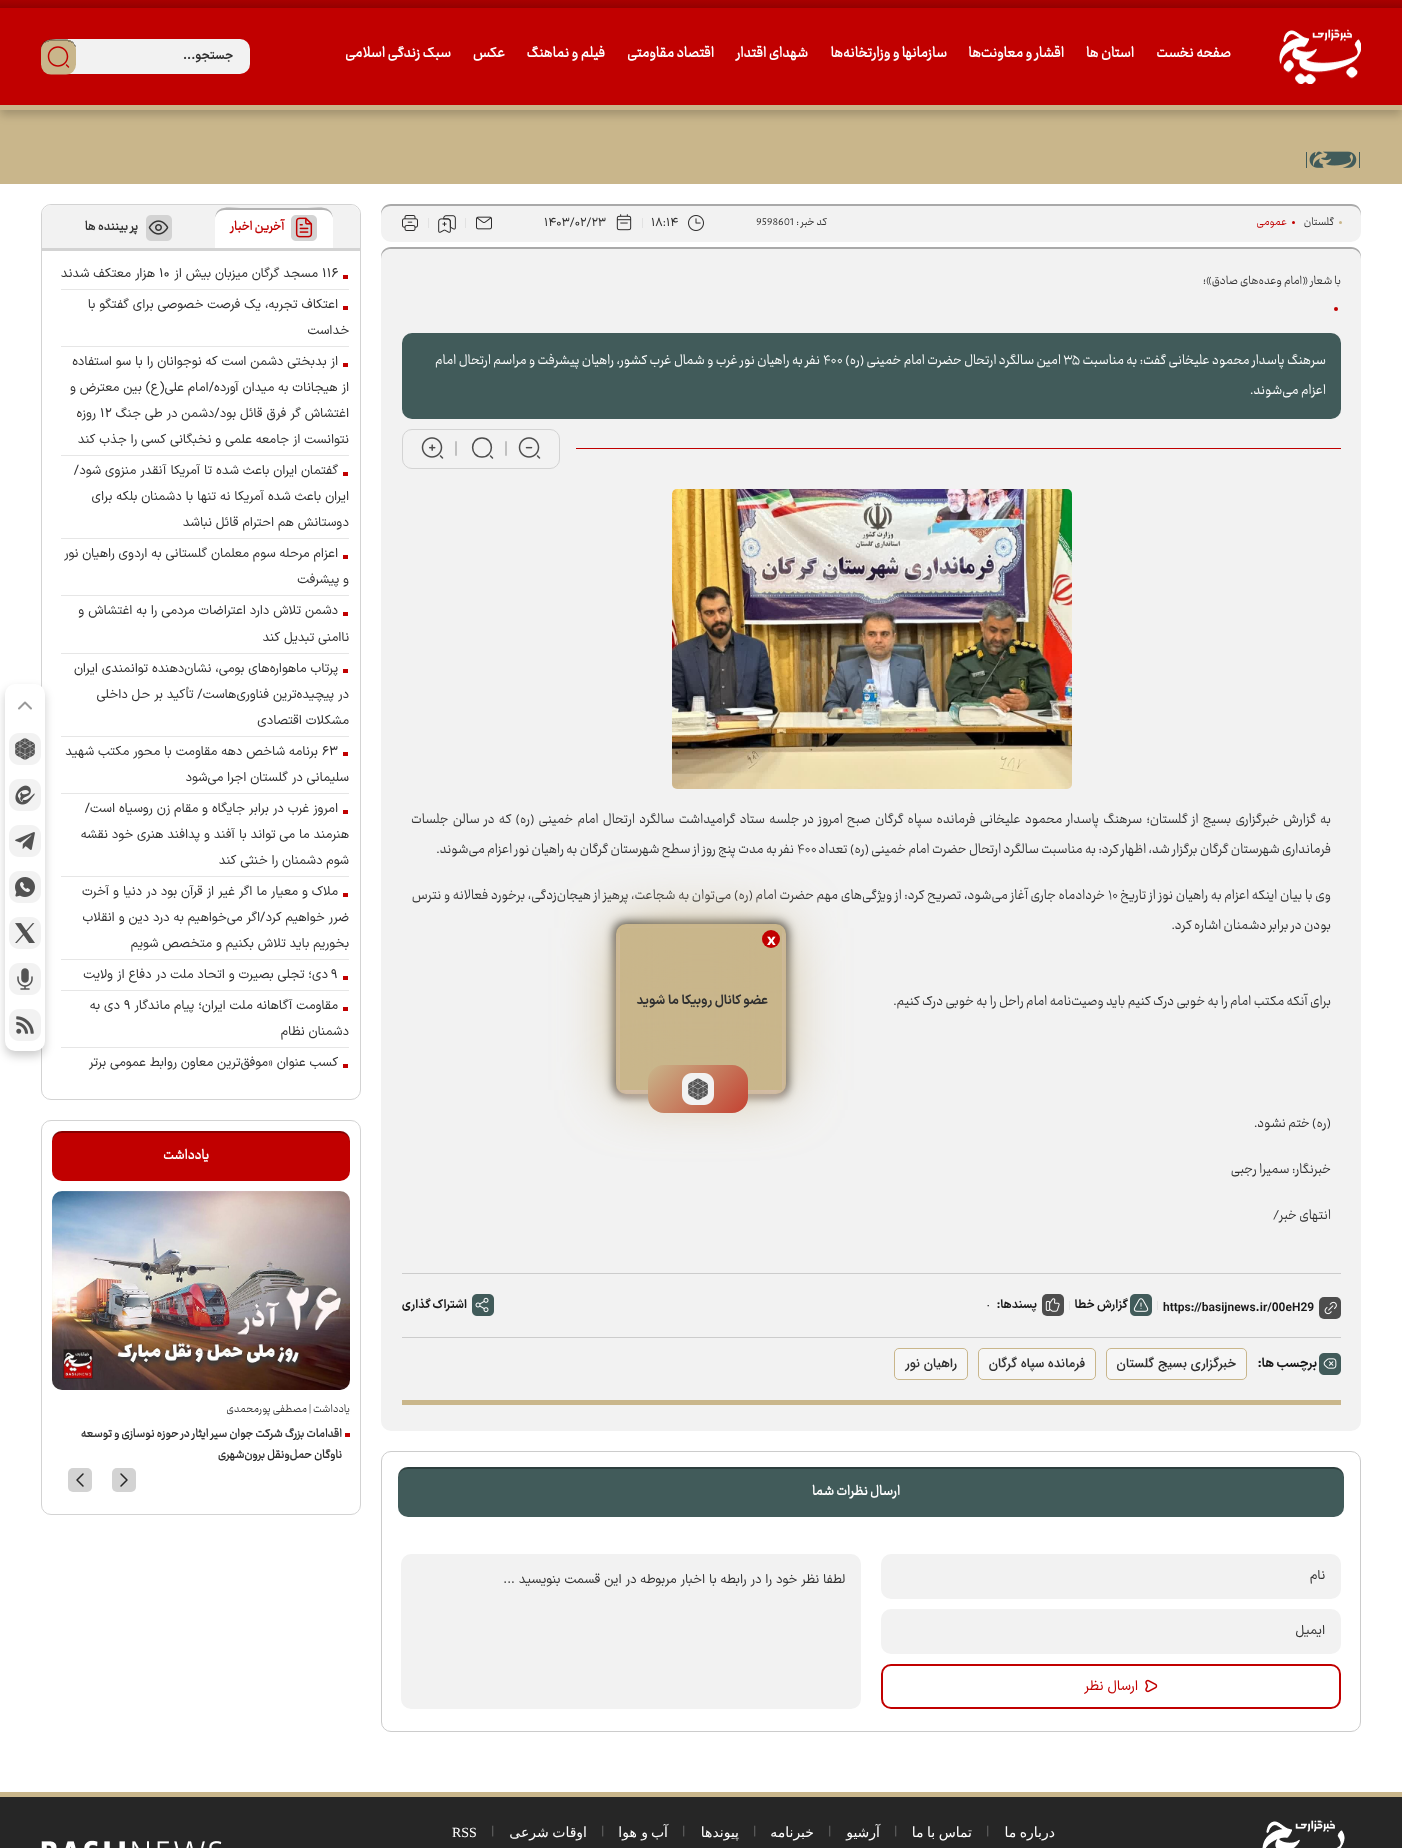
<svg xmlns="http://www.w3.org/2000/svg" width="1402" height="1848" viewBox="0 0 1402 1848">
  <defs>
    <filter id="blur1" x="-50%" y="-200%" width="200%" height="500%"><feGaussianBlur stdDeviation="5"/></filter>
    <linearGradient id="g1" gradientUnits="userSpaceOnUse" x1="701" y1="-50" x2="701" y2="8"><stop offset="0" stop-color="#c10000"/><stop offset="0.7" stop-color="#c10000"/><stop offset="1" stop-color="#940000"/></linearGradient>
    <filter id="blur2" x="-50%" y="-200%" width="200%" height="500%"><feGaussianBlur stdDeviation="5.5"/></filter>
    <clipPath id="clip1"><path d="M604 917H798V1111H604ZM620 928H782V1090H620Z" clip-rule="evenodd"/></clipPath>
    <filter id="blur3" x="-50%" y="-200%" width="200%" height="500%"><feGaussianBlur stdDeviation="30"/></filter>
    <linearGradient id="g2" gradientUnits="userSpaceOnUse" x1="661" y1="1052" x2="735" y2="1126"><stop offset="0" stop-color="#c9b68b"/><stop offset="1" stop-color="#c44131"/></linearGradient>
  </defs>
  <rect width="100%" height="100%" fill="#ffffff"/>
  <rect x="0" y="110" width="1402" height="74" fill="#c9b68b"/>
  <rect x="0" y="13" width="1402" height="102" fill="#000000" fill-opacity="0.2" filter="url(#blur1)"/>
  <rect x="0" y="0" width="1402" height="8" fill="url(#g1)"/>
  <rect x="0" y="8" width="1402" height="97" fill="#c10000"/>
  <rect x="0" y="105" width="1402" height="5" fill="#c9b68b"/>
  <image x="1279" y="29" width="82" height="55" href="img1.png"/>
  <text x="1231" y="57" font-family="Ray" font-size="16" font-weight="bold" direction="rtl" fill="#ffffff">صفحه نخست</text>
  <text x="1134" y="57" font-family="Ray" font-size="16" font-weight="bold" direction="rtl" fill="#ffffff">استان ها</text>
  <text x="1064" y="57" font-family="Ray" font-size="16" font-weight="bold" direction="rtl" fill="#ffffff">اقشار و معاونت‌ها</text>
  <text x="947" y="57" font-family="Ray" font-size="16" font-weight="bold" direction="rtl" fill="#ffffff">سازمانها و وزارتخانه‌ها</text>
  <text x="808" y="57" font-family="Ray" font-size="16" font-weight="bold" direction="rtl" fill="#ffffff">شهدای اقتدار</text>
  <text x="714" y="57" font-family="Ray" font-size="16" font-weight="bold" direction="rtl" fill="#ffffff">اقتصاد مقاومتی</text>
  <text x="605" y="57" font-family="Ray" font-size="16" font-weight="bold" direction="rtl" fill="#ffffff">فیلم و نماهنگ</text>
  <text x="505" y="57" font-family="Ray" font-size="16" font-weight="bold" direction="rtl" fill="#ffffff">عکس</text>
  <text x="451" y="57" font-family="Ray" font-size="16" font-weight="bold" direction="rtl" fill="#ffffff">سبک زندگی اسلامی</text>
  <rect x="46" y="39" width="204" height="35" rx="10" fill="#f2f2f2"/>
  <text x="233" y="59" font-family="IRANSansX" font-size="12" font-weight="bold" direction="rtl" fill="#303030">جستجو...</text>
  <image x="41" y="39" width="35" height="36" href="img2.png"/>
  <image x="1306" y="151" width="54" height="17" href="img3.png"/>
  <rect x="381" y="204" width="980" height="38" rx="10" fill="#f2f2f2"/>
  <path d="M391 206H1351C1357 206 1361 210 1361 216V214C1361 208 1357 204 1351 204H391C385 204 381 208 381 214V216C381 210 385 206 391 206Z" fill="#000000" fill-opacity="0.3"/>
  <circle cx="1340.5" cy="222.5" r="1.5" fill="#c9b68b"/>
  <text x="1334" y="225" font-family="Ray" font-size="12" direction="rtl" fill="#303030">گلستان</text>
  <circle cx="1293.5" cy="222.5" r="1.5" fill="#c10000"/>
  <text x="1287" y="225" font-family="Ray" font-size="12" direction="rtl" fill="#c10000">عمومی</text>
  <text x="827" y="225" font-family="Ray" font-size="12" direction="rtl" fill="#303030">کد خبر :</text>
  <text x="756" y="225" font-family="Ray" font-size="12" fill="#303030">9598601</text>
  <image x="688" y="215" width="16" height="16" href="img4.png"/>
  <text x="651" y="226" font-family="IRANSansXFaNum" font-size="12" fill="#303030">۱۸:۱۴</text>
  <rect x="642" y="218" width="1" height="10" fill="#e2e2e2"/>
  <image x="616" y="214" width="16" height="17" href="img5.png"/>
  <text x="544" y="226" font-family="IRANSansXFaNum" font-size="12" fill="#303030">۱۴۰۳/۰۲/۲۳</text>
  <image x="476" y="216" width="16" height="14" href="img6.png"/>
  <rect x="465" y="218" width="1" height="10" fill="#e2e2e2"/>
  <image x="438" y="215" width="18" height="18" href="img7.png"/>
  <rect x="428" y="218" width="1" height="10" fill="#e2e2e2"/>
  <image x="402" y="215" width="16" height="16" href="img8.png"/>
  <rect x="381" y="247" width="980" height="1184" rx="10" fill="#f2f2f2"/>
  <path d="M391 249H1351C1357 249 1361 253 1361 259V257C1361 251 1357 247 1351 247H391C385 247 381 251 381 257V259C381 253 385 249 391 249Z" fill="#000000" fill-opacity="0.3"/>
  <text x="1341" y="284" font-family="Ray" font-size="13" direction="rtl" fill="#303030">با شعار «امام وعده‌های صادق»؛</text>
  <circle cx="1336" cy="309" r="2" fill="#c10000"/>
  <rect x="402" y="333" width="939" height="86" rx="10" fill="#415b5a"/>
  <text x="1326" y="364" font-family="Ray" font-size="15" font-weight="500" direction="rtl" fill="#ffffff">سرهنگ پاسدار محمود علیخانی گفت: به مناسبت</text>
  <text x="1063" y="364" font-family="Ray" font-size="15" font-weight="500" fill="#ffffff">۳۵</text>
  <text x="1061" y="364" font-family="Ray" font-size="15" font-weight="500" direction="rtl" fill="#ffffff">امین سالگرد ارتحال حضرت امام خمینی (ره)</text>
  <text x="823" y="364" font-family="Ray" font-size="15" font-weight="500" fill="#ffffff">۴۰۰</text>
  <text x="820" y="364" font-family="Ray" font-size="15" font-weight="500" direction="rtl" fill="#ffffff">نفر به راهیان نور غرب و شمال غرب کشور، راهیان پیشرفت و مراسم ارتحال امام</text>
  <text x="1326" y="394" font-family="Ray" font-size="15" font-weight="500" direction="rtl" fill="#ffffff">اعزام می‌شوند.</text>
  <rect x="576" y="448" width="765" height="1" fill="#c10000"/>
  <rect x="402.5" y="429.5" width="157" height="39" rx="9.5" fill="none" stroke="#d3d3d3"/>
  <image x="518" y="437" width="23" height="22" href="img9.png"/>
  <rect x="505" y="441" width="2" height="15" rx="1" fill="#c1c1c1"/>
  <path d="M482 457C494.5 457 494.5 438 482 438C469.5 438 469.5 457 482 457ZM492.5 458L490.5 456" fill="none" stroke="#4d4d4d" stroke-width="1.5" stroke-linecap="round" stroke-linejoin="round"/>
  <rect x="455" y="441" width="2" height="15" rx="1" fill="#c1c1c1"/>
  <image x="421" y="437" width="23" height="22" href="img10.png"/>
  <image x="672" y="489" width="400" height="300" href="img11.png"/>
  <text x="1331" y="823" word-spacing="1.75" font-family="Ray" font-size="15" direction="rtl" fill="#303030">به گزارش خبرگزاری بسیج از گلستان؛ سرهنگ پاسدار محمود علیخانی فرمانده سپاه گرگان صبح امروز در جلسه ستاد گرامیداشت سالگرد ارتحال امام خمینی (ره) که در سالن جلسات</text>
  <text x="1331" y="853" font-family="Ray" font-size="15" direction="rtl" fill="#303030">فرمانداری شهرستان گرگان برگزار شد، اظهار کرد: به مناسبت سالگرد ارتحال حضرت امام خمینی (ره) تعداد</text>
  <text x="797" y="853" font-family="Ray" font-size="15" fill="#303030">۴۰۰</text>
  <text x="794" y="853" font-family="Ray" font-size="15" direction="rtl" fill="#303030">نفر به مدت پنج روز از سطح شهرستان گرگان به راهیان نور اعزام می‌شوند.</text>
  <text x="1331" y="899" word-spacing="0.25" font-family="Ray" font-size="15" direction="rtl" fill="#303030">وی با بیان اینکه اعزام به راهیان نوز از تاریخ</text>
  <text x="1108" y="899" font-family="Ray" font-size="15" fill="#303030">۱۰</text>
  <text x="1105" y="899" word-spacing="0.25" font-family="Ray" font-size="15" direction="rtl" fill="#303030">خردادماه جاری آغاز می‌شود، تصریح کرد: از ویژگی‌های مهم حضرت امام (ره) می‌توان به شجاعت، پرهیز از هیجان‌زدگی، برخورد فعالانه و نترس</text>
  <text x="1331" y="929" font-family="Ray" font-size="15" direction="rtl" fill="#303030">بودن در برابر دشمنان اشاره کرد.</text>
  <text x="1331" y="1005" font-family="Ray" font-size="15" direction="rtl" fill="#303030">برای آنکه مکتب امام را به خوبی درک کنیم باید وصیت‌نامه امام راحل را به خوبی درک کنیم.</text>
  <text x="1331" y="1127" font-family="Ray" font-size="15" direction="rtl" fill="#303030">(ره) ختم نشود.</text>
  <text x="1331" y="1173" font-family="Ray" font-size="15" direction="rtl" fill="#303030">خبرنگار: سمیرا رجبی</text>
  <text x="1331" y="1219" font-family="Ray" font-size="15" direction="rtl" fill="#303030">انتهای خبر/</text>
  <rect x="402" y="1273" width="939" height="1" fill="#cccccc"/>
  <rect x="402" y="1337" width="939" height="1" fill="#cccccc"/>
  <rect x="1319" y="1297" width="22" height="22" rx="5" fill="#4d4d4d"/>
  <image x="1324" y="1301" width="13" height="14" href="img12.png"/>
  <text x="1163" y="1311" font-family="IRANSansX" font-size="12" font-weight="bold" fill="#191919">https://basijnews.ir/00eH29</text>
  <rect x="1157" y="1301" width="1" height="9" fill="#e3e3e3"/>
  <image x="1130" y="1294" width="22" height="22" href="img13.png"/>
  <text x="1128" y="1308" font-family="IRANSansX" font-size="12" font-weight="bold" direction="rtl" fill="#191919">گزارش خطا</text>
  <rect x="1069" y="1301" width="1" height="9" fill="#e3e3e3"/>
  <rect x="1042" y="1294" width="22" height="22" rx="5" fill="#4d4d4d"/>
  <image x="1045" y="1298" width="15" height="14" href="img14.png"/>
  <text x="1037" y="1308" font-family="IRANSansX" font-size="12" font-weight="bold" direction="rtl" fill="#191919">پسندها:</text>
  <text x="985" y="1309" font-family="DejaVu Sans" font-size="12" fill="#191919">۰</text>
  <image x="472" y="1294" width="22" height="22" href="img15.png"/>
  <text x="467" y="1308" font-family="IRANSansX" font-size="12" font-weight="bold" direction="rtl" fill="#191919">اشتراک گذاری</text>
  <rect x="402" y="1400" width="939" height="5" fill="#c9b68b"/>
  <image x="1319" y="1353" width="22" height="22" href="img16.png"/>
  <text x="1317" y="1367" font-family="IRANSansX" font-size="13" font-weight="bold" direction="rtl" fill="#191919">برچسب ها:</text>
  <rect x="1106.5" y="1348.5" width="140" height="31" rx="4.5" fill="#f6f6f6" stroke="#c9b68b"/>
  <text x="1236" y="1367" font-family="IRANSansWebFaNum" font-size="13" font-weight="500" direction="rtl" fill="#303030">خبرگزاری بسیج گلستان</text>
  <rect x="978.5" y="1348.5" width="117" height="31" rx="4.5" fill="#f6f6f6" stroke="#c9b68b"/>
  <text x="1085" y="1367" font-family="IRANSansWebFaNum" font-size="13" font-weight="500" direction="rtl" fill="#303030">فرمانده سپاه گرگان</text>
  <rect x="894.5" y="1348.5" width="73" height="31" rx="4.5" fill="#f6f6f6" stroke="#c9b68b"/>
  <text x="957" y="1367" font-family="IRANSansWebFaNum" font-size="13" font-weight="500" direction="rtl" fill="#303030">راهیان نور</text>
  <rect x="381.5" y="1451.5" width="979" height="280" rx="9.5" fill="none" stroke="#cccccc"/>
  <rect x="398" y="1467" width="946" height="50" rx="10" fill="#415b5a"/>
  <path d="M408 1469H1334C1340 1469 1344 1473 1344 1479V1477C1344 1471 1340 1467 1334 1467H408C402 1467 398 1471 398 1477V1479C398 1473 402 1469 408 1469Z" fill="#000000" fill-opacity="0.3"/>
  <text x="900" y="1495" font-family="Ray" font-size="15" font-weight="bold" direction="rtl" fill="#ffffff">ارسال نظرات شما</text>
  <rect x="881" y="1554" width="460" height="45" rx="10" fill="#f2f2f2"/>
  <text x="1325" y="1579" font-family="IRANSansXFaNum" font-size="13" direction="rtl" fill="#303030">نام</text>
  <rect x="881" y="1609" width="460" height="45" rx="10" fill="#f2f2f2"/>
  <text x="1325" y="1634" font-family="IRANSansXFaNum" font-size="13" direction="rtl" fill="#303030">ایمیل</text>
  <image x="1145" y="1679" width="13" height="14" href="img17.png"/>
  <rect x="882" y="1665" width="458" height="43" rx="9" fill="none" stroke="#c10000" stroke-width="2"/>
  <text x="1138" y="1690" font-family="IRANSansXFaNum" font-size="14" direction="rtl" fill="#c10000">ارسال نظر</text>
  <rect x="401" y="1554" width="460" height="155" rx="10" fill="#f2f2f2"/>
  <text x="845" y="1583" font-family="IRANSansXFaNum" font-size="13" direction="rtl" fill="#303030">لطفا نظر خود را در رابطه با اخبار مربوطه در این قسمت بنویسید ...</text>
  <rect x="41.5" y="204.5" width="319" height="895" rx="9.5" fill="none" stroke="#d3d3d3"/>
  <path d="M52 205H350C355.5 205 360 209.5 360 215V251H42V215C42 209.5 46.5 205 52 205Z" fill="#f2f2f2"/>
  <rect x="42" y="248" width="318" height="3" fill="#d3d3d3"/>
  <path d="M225 208H323C328.5 208 333 212.5 333 218V248H215V218C215 212.5 219.5 208 225 208Z" fill="#ffffff"/>
  <path d="M225 210H323C329 210 333 214 333 220C333 204 318 208 307 208H241C230 208 215 204 215 220C215 214 219 210 225 210Z" fill="#000000" fill-opacity="0.3"/>
  <image x="291" y="215" width="26" height="26" href="img18.png"/>
  <text x="284" y="230" font-family="Ray" font-size="14" font-weight="bold" direction="rtl" fill="#c10000">آخرین اخبار</text>
  <image x="146" y="215" width="26" height="26" href="img19.png"/>
  <text x="138" y="230" font-family="Ray" font-size="14" font-weight="bold" direction="rtl" fill="#303030">پر بیننده ها</text>
  <rect x="61" y="289" width="288" height="1" fill="#e6e6e6"/>
  <rect x="343" y="275" width="5" height="4" fill="#c10000"/>
  <text x="322" y="277" font-family="IRANSansXFaNum" font-size="13" fill="#303030">۱۱۶</text>
  <text x="318" y="277" font-family="IRANSansXFaNum" font-size="13" direction="rtl" fill="#303030">مسجد گرگان میزبان بیش از</text>
  <text x="159" y="277" font-family="IRANSansXFaNum" font-size="13" fill="#303030">۱۰</text>
  <text x="155" y="277" font-family="IRANSansXFaNum" font-size="13" direction="rtl" fill="#303030">هزار معتکف شدند</text>
  <rect x="61" y="346" width="288" height="1" fill="#e6e6e6"/>
  <rect x="343" y="306" width="5" height="4" fill="#c10000"/>
  <text x="338" y="308" font-family="IRANSansXFaNum" font-size="13" direction="rtl" fill="#303030">اعتکاف تجربه، یک فرصت خصوصی برای گفتگو با</text>
  <text x="349" y="334" font-family="IRANSansXFaNum" font-size="13" direction="rtl" fill="#303030">خداست</text>
  <rect x="61" y="455" width="288" height="1" fill="#e6e6e6"/>
  <rect x="343" y="363" width="5" height="4" fill="#c10000"/>
  <text x="338" y="365" font-family="IRANSansXFaNum" font-size="13" direction="rtl" fill="#303030">از بدبختی دشمن است که نوجوانان را با سو استفاده</text>
  <text x="349" y="391" font-family="IRANSansXFaNum" font-size="13" direction="rtl" fill="#303030">از هیجانات به میدان آورده/امام علی(ع) بین معترض و</text>
  <text x="349" y="417" font-family="IRANSansXFaNum" font-size="13" direction="rtl" fill="#303030">اغتشاش گر فرق قائل بود/دشمن در طی جنگ</text>
  <text x="100" y="417" font-family="IRANSansXFaNum" font-size="13" fill="#303030">۱۲</text>
  <text x="96" y="417" font-family="IRANSansXFaNum" font-size="13" direction="rtl" fill="#303030">روزه</text>
  <text x="349" y="443" font-family="IRANSansXFaNum" font-size="13" direction="rtl" fill="#303030">نتوانست از جامعه علمی و نخبگانی کسی را جذب کند</text>
  <rect x="61" y="538" width="288" height="1" fill="#e6e6e6"/>
  <rect x="343" y="472" width="5" height="4" fill="#c10000"/>
  <text x="338" y="474" font-family="IRANSansXFaNum" font-size="13" direction="rtl" fill="#303030">گفتمان ایران باعث شده تا آمریکا آنقدر منزوی شود/</text>
  <text x="349" y="500" font-family="IRANSansXFaNum" font-size="13" direction="rtl" fill="#303030">ایران باعث شده آمریکا نه تنها با دشمنان بلکه برای</text>
  <text x="349" y="526" font-family="IRANSansXFaNum" font-size="13" direction="rtl" fill="#303030">دوستانش هم احترام قائل نباشد</text>
  <rect x="61" y="595" width="288" height="1" fill="#e6e6e6"/>
  <rect x="343" y="555" width="5" height="4" fill="#c10000"/>
  <text x="338" y="557" font-family="IRANSansXFaNum" font-size="13" direction="rtl" fill="#303030">اعزام مرحله سوم معلمان گلستانی به اردوی راهیان نور</text>
  <text x="349" y="583" font-family="IRANSansXFaNum" font-size="13" direction="rtl" fill="#303030">و پیشرفت</text>
  <rect x="61" y="653" width="288" height="1" fill="#e6e6e6"/>
  <rect x="343" y="612" width="5" height="4" fill="#c10000"/>
  <text x="338" y="614" font-family="IRANSansXFaNum" font-size="13" direction="rtl" fill="#303030">دشمن تلاش دارد اعتراضات مردمی را به اغتشاش و</text>
  <text x="349" y="641" font-family="IRANSansXFaNum" font-size="13" direction="rtl" fill="#303030">ناامنی تبدیل کند</text>
  <rect x="61" y="736" width="288" height="1" fill="#e6e6e6"/>
  <rect x="343" y="669" width="5" height="4" fill="#c10000"/>
  <text x="338" y="672" font-family="IRANSansXFaNum" font-size="13" direction="rtl" fill="#303030">پرتاب ماهواره‌های بومی، نشان‌دهنده توانمندی ایران</text>
  <text x="349" y="698" font-family="IRANSansXFaNum" font-size="13" direction="rtl" fill="#303030">در پیچیده‌ترین فناوری‌هاست/ تأکید بر حل داخلی</text>
  <text x="349" y="724" font-family="IRANSansXFaNum" font-size="13" direction="rtl" fill="#303030">مشکلات اقتصادی</text>
  <rect x="61" y="793" width="288" height="1" fill="#e6e6e6"/>
  <rect x="343" y="752" width="5" height="4" fill="#c10000"/>
  <text x="322" y="755" font-family="IRANSansXFaNum" font-size="13" fill="#303030">۶۳</text>
  <text x="318" y="755" font-family="IRANSansXFaNum" font-size="13" direction="rtl" fill="#303030">برنامه شاخص دهه مقاومت با محور مکتب شهید</text>
  <text x="349" y="781" font-family="IRANSansXFaNum" font-size="13" direction="rtl" fill="#303030">سلیمانی در گلستان اجرا می‌شود</text>
  <rect x="61" y="876" width="288" height="1" fill="#e6e6e6"/>
  <rect x="343" y="810" width="5" height="4" fill="#c10000"/>
  <text x="338" y="812" font-family="IRANSansXFaNum" font-size="13" direction="rtl" fill="#303030">امروز غرب در برابر جایگاه و مقام زن روسیاه است/</text>
  <text x="349" y="838" font-family="IRANSansXFaNum" font-size="13" direction="rtl" fill="#303030">هنرمند ما می تواند با آفند و پدافند هنری خود نقشه</text>
  <text x="349" y="864" font-family="IRANSansXFaNum" font-size="13" direction="rtl" fill="#303030">شوم دشمنان را خنثی کند</text>
  <rect x="61" y="959" width="288" height="1" fill="#e6e6e6"/>
  <rect x="343" y="893" width="5" height="4" fill="#c10000"/>
  <text x="338" y="895" font-family="IRANSansXFaNum" font-size="13" direction="rtl" fill="#303030">ملاک و معیار ما اگر غیر از قرآن بود در دنیا و آخرت</text>
  <text x="349" y="921" font-family="IRANSansXFaNum" font-size="13" direction="rtl" fill="#303030">ضرر خواهیم کرد/اگر می‌خواهیم به درد دین و انقلاب</text>
  <text x="349" y="947" font-family="IRANSansXFaNum" font-size="13" direction="rtl" fill="#303030">بخوریم باید تلاش بکنیم و متخصص شویم</text>
  <rect x="61" y="990" width="288" height="1" fill="#e6e6e6"/>
  <rect x="343" y="976" width="5" height="4" fill="#c10000"/>
  <text x="331" y="978" font-family="IRANSansXFaNum" font-size="13" fill="#303030">۹</text>
  <text x="328" y="978" font-family="IRANSansXFaNum" font-size="13" direction="rtl" fill="#303030">دی؛ تجلی بصیرت و اتحاد ملت در دفاع از ولایت</text>
  <rect x="61" y="1047" width="288" height="1" fill="#e6e6e6"/>
  <rect x="343" y="1007" width="5" height="4" fill="#c10000"/>
  <text x="338" y="1009" font-family="IRANSansXFaNum" font-size="13" direction="rtl" fill="#303030">مقاومت آگاهانه ملت ایران؛ پیام ماندگار</text>
  <text x="124" y="1009" font-family="IRANSansXFaNum" font-size="13" fill="#303030">۹</text>
  <text x="120" y="1009" font-family="IRANSansXFaNum" font-size="13" direction="rtl" fill="#303030">دی به</text>
  <text x="349" y="1035" font-family="IRANSansXFaNum" font-size="13" direction="rtl" fill="#303030">دشمنان نظام</text>
  <rect x="343" y="1064" width="5" height="4" fill="#c10000"/>
  <text x="338" y="1066" font-family="IRANSansXFaNum" font-size="13" direction="rtl" fill="#303030">کسب عنوان «موفق‌ترین معاون روابط عمومی برتر</text>
  <rect x="41.5" y="1120.5" width="319" height="394" rx="9.5" fill="none" stroke="#d3d3d3"/>
  <rect x="52" y="1131" width="298" height="50" rx="10" fill="#c10000"/>
  <path d="M62 1133H340C346 1133 350 1137 350 1143V1141C350 1135 346 1131 340 1131H62C56 1131 52 1135 52 1141V1143C52 1137 56 1133 62 1133Z" fill="#000000" fill-opacity="0.3"/>
  <text x="209" y="1159" font-family="Ray" font-size="15" font-weight="bold" direction="rtl" fill="#ffffff">یادداشت</text>
  <image x="52" y="1191" width="298" height="199" href="img20.png"/>
  <text x="350" y="1412" font-family="Ray" font-size="12" direction="rtl" fill="#303030">یادداشت | مصطفی پورمحمدی</text>
  <rect x="345" y="1433" width="5" height="4" fill="#c10000"/>
  <text x="342" y="1437" font-family="Ray" font-size="13" font-weight="bold" direction="rtl" fill="#303030">اقدامات بزرگ شرکت جوان سیر ایثار در حوزه نوسازی و توسعه</text>
  <text x="342" y="1458" font-family="Ray" font-size="13" font-weight="bold" direction="rtl" fill="#303030">ناوگان حمل‌ونقل برون‌شهری</text>
  <rect x="112" y="1468" width="24" height="24" rx="5" fill="#d3d3d3"/>
  <path d="M121 1486L127 1480L121 1474" fill="none" stroke="#262626" stroke-width="1.5" stroke-linecap="round" stroke-linejoin="round"/>
  <rect x="68" y="1468" width="24" height="24" rx="5" fill="#d3d3d3"/>
  <path d="M83 1486L77 1480L83 1474" fill="none" stroke="#262626" stroke-width="1.5" stroke-linecap="round" stroke-linejoin="round"/>
  <rect x="5" y="689" width="40" height="367" rx="10" fill="#000000" fill-opacity="0.2" filter="url(#blur1)"/>
  <rect x="5" y="684" width="40" height="367" rx="10" fill="#ffffff"/>
  <path d="M31 708.5L25 702.5L19 708.5" fill="none" stroke="#999999" stroke-width="2" stroke-linecap="round" stroke-linejoin="round"/>
  <image x="9" y="733" width="32" height="32" href="img21.png"/>
  <image x="9" y="779" width="32" height="32" href="img22.png"/>
  <image x="9" y="825" width="32" height="32" href="img23.png"/>
  <image x="9" y="871" width="32" height="32" href="img24.png"/>
  <image x="9" y="917" width="32" height="32" href="img25.png"/>
  <image x="9" y="963" width="32" height="32" href="img26.png"/>
  <image x="9" y="1009" width="32" height="32" href="img27.png"/>
  <rect x="615" y="923" width="172" height="172" rx="9" fill="#000000" filter="url(#blur2)"/>
  <rect x="616" y="924" width="170" height="170" rx="10" fill="#c9b68b"/>
  <g clip-path="url(#clip1)">
    <rect x="620" y="933" width="162" height="162" fill="#dac1bc" filter="url(#blur1)"/>
  </g>
  <rect x="620" y="928" width="162" height="162" fill="#c9b68b" filter="url(#blur3)"/>
  <circle cx="771" cy="939" r="9" fill="#c10000"/>
  <text x="767" y="945" font-family="Noto Sans" font-size="15" font-weight="bold" fill="#ffffff">x</text>
  <text x="768" y="1004" font-family="IRANSansX" font-size="13" font-weight="bold" direction="rtl" fill="#303030">عضو کانال روبیکا ما شوید</text>
  <rect x="648" y="1065" width="100" height="48" rx="16" fill="url(#g2)"/>
  <image x="682" y="1073" width="32" height="32" href="img28.png"/>
  <rect x="0" y="1797" width="1402" height="51" fill="#262626"/>
  <rect x="0" y="1792" width="1402" height="5" fill="#c9b68b"/>
  <image x="1262" y="1820" width="83" height="28" href="img29.png"/>
  <text x="1055" y="1837" word-spacing="-1" font-family="DejaVu Sans" font-size="14" direction="rtl" fill="#ffffff">درباره ما</text>
  <image x="987" y="1825" width="2" height="12" href="img30.png"/>
  <text x="972" y="1837" word-spacing="-1" font-family="DejaVu Sans" font-size="14" direction="rtl" fill="#ffffff">تماس با ما</text>
  <image x="895" y="1825" width="2" height="12" href="img30.png"/>
  <text x="880" y="1837" font-family="DejaVu Sans" font-size="14" direction="rtl" fill="#ffffff">آرشیو</text>
  <image x="829" y="1825" width="2" height="12" href="img30.png"/>
  <text x="814" y="1837" font-family="DejaVu Sans" font-size="14" direction="rtl" fill="#ffffff">خبرنامه</text>
  <image x="754" y="1825" width="2" height="12" href="img30.png"/>
  <text x="739" y="1837" font-family="DejaVu Sans" font-size="14" direction="rtl" fill="#ffffff">پیوندها</text>
  <image x="683" y="1825" width="2" height="12" href="img30.png"/>
  <text x="668" y="1837" font-family="DejaVu Sans" font-size="14" direction="rtl" fill="#ffffff">آب</text>
  <text x="648" y="1837" font-family="DejaVu Sans" font-size="14" direction="rtl" fill="#ffffff">و هوا</text>
  <image x="602" y="1825" width="2" height="12" href="img30.png"/>
  <text x="587" y="1837" word-spacing="-1" font-family="DejaVu Sans" font-size="14" direction="rtl" fill="#ffffff">اوقات شرعی</text>
  <image x="492" y="1825" width="2" height="12" href="img30.png"/>
  <text x="452" y="1837" font-family="Liberation Serif" font-size="14" fill="#ffffff">RSS</text>
  <image x="41" y="1840" width="181" height="8" href="img31.png"/>
</svg>
